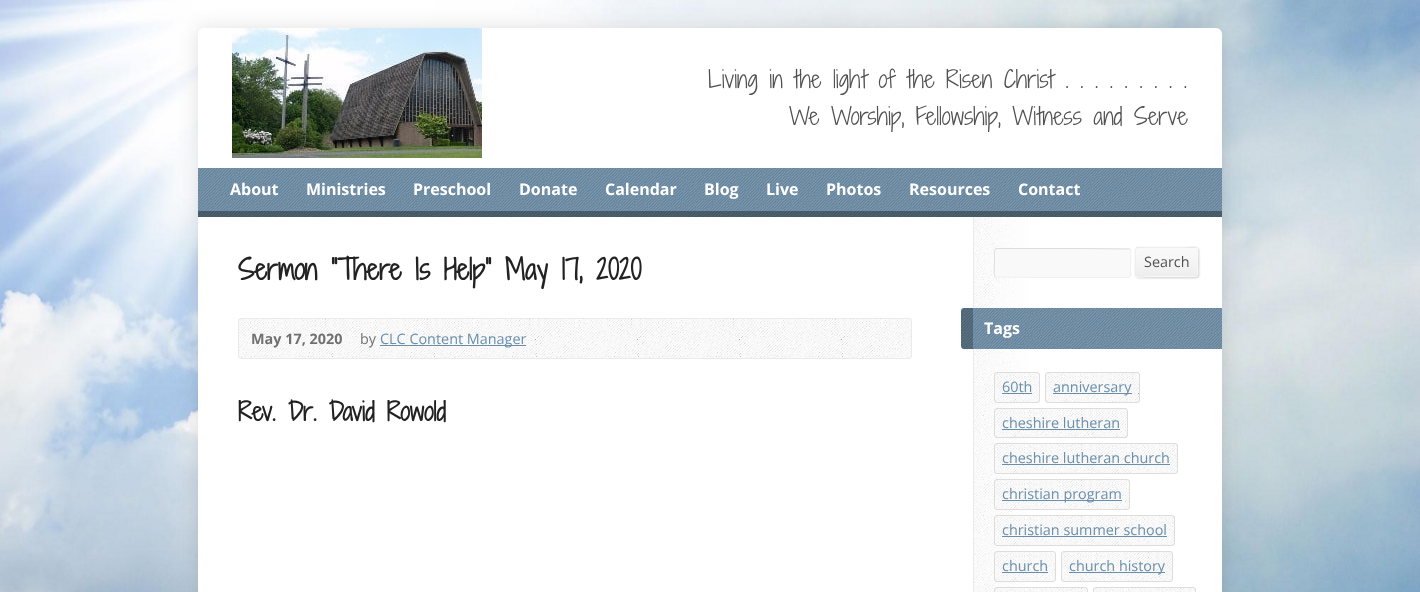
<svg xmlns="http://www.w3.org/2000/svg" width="1420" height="592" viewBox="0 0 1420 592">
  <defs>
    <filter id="blur1" x="-50%" y="-200%" width="200%" height="500%"><feGaussianBlur stdDeviation="10"/></filter>
    <filter id="blur2" x="-50%" y="-200%" width="200%" height="500%"><feGaussianBlur stdDeviation="1"/></filter>
  </defs>
  <rect width="100%" height="100%" fill="#ffffff"/>
  <image x="0" y="0" width="1420" height="592" href="img1.png"/>
  <rect x="198" y="28" width="1024" height="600" rx="6" fill="#000000" fill-opacity="0.12" filter="url(#blur1)"/>
  <rect x="198" y="28" width="1024" height="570" rx="6" fill="#ffffff"/>
  <image x="232" y="28" width="250" height="130" href="img2.png"/>
  <text x="708" y="88" font-family="Shadows Into Light Two" font-size="23" font-weight="300" fill="#515151">Living in the light of the Risen Christ . . . . . . . . .</text>
  <text x="789" y="125" font-family="Shadows Into Light Two" font-size="23" font-weight="300" fill="#515151">We Worship, Fellowship, Witness and Serve</text>
  <rect x="198" y="168" width="1024" height="49" fill="#6a8fab"/>
  <image x="198" y="168" width="1024" height="49" href="img3.png"/>
  <text x="230" y="195" font-family="Open Sans" font-size="16" font-weight="bold" fill="#ffffff">About</text>
  <text x="306" y="195" font-family="Open Sans" font-size="16" font-weight="bold" fill="#ffffff">Ministries</text>
  <text x="413" y="195" font-family="Open Sans" font-size="16" font-weight="bold" fill="#ffffff">Preschool</text>
  <text x="519" y="195" font-family="Open Sans" font-size="16" font-weight="bold" fill="#ffffff">Donate</text>
  <text x="605" y="195" font-family="Open Sans" font-size="16" font-weight="bold" fill="#ffffff">Calendar</text>
  <text x="704" y="195" font-family="Open Sans" font-size="16" font-weight="bold" fill="#ffffff">Blog</text>
  <text x="766" y="195" font-family="Open Sans" font-size="16" font-weight="bold" fill="#ffffff">Live</text>
  <text x="826" y="195" font-family="Open Sans" font-size="16" font-weight="bold" fill="#ffffff">Photos</text>
  <text x="909" y="195" font-family="Open Sans" font-size="16" font-weight="bold" fill="#ffffff">Resources</text>
  <text x="1018" y="195" font-family="Open Sans" font-size="16" font-weight="bold" fill="#ffffff">Contact</text>
  <rect x="198" y="211" width="1024" height="6" fill="#000000" fill-opacity="0.35"/>
  <text x="238" y="280" font-family="Shadows Into Light Two" font-size="27.4" font-weight="bold" fill="#222222">Sermon “There Is Help” May 17, 2020</text>
  <image x="238" y="318" width="674" height="41" href="img4.png"/>
  <rect x="238.5" y="318.5" width="673" height="40" rx="2.5" fill="none" stroke="#eaeaea"/>
  <text x="251" y="344" font-family="Open Sans" font-size="14.4" font-weight="bold" fill="#717171">May 17, 2020</text>
  <text x="360" y="344" font-family="Open Sans" font-size="14.4" fill="#717171">by</text>
  <rect x="380" y="345" width="146" height="1" fill="#6a8fab"/>
  <text x="380" y="344" font-family="Open Sans" font-size="14.4" fill="#6a8fab">CLC Content Manager</text>
  <text x="238" y="421" font-family="Shadows Into Light Two" font-size="24.5" font-weight="bold" fill="#222222">Rev. Dr. David Rowold</text>
  <image x="974" y="217" width="54" height="375" href="img5.png"/>
  <rect x="973" y="217" width="1" height="375" fill="#eaeaea"/>
  <rect x="994" y="248" width="137" height="30" rx="3" fill="#f9f9f9"/>
  <path d="M1130 249C1131.5 251 1130.5 260.5 1130.5 263V271C1130.5 273 1131.5 277.5 1128 277.5H1040.5L996 277H995" fill="none" stroke="#f1f1f1"/>
  <path d="M995 277C993.5 275 994.5 265.5 994.5 263V255C994.5 253 993.5 248.5 997 248.5H1084.5L1129 249H1130" fill="none" stroke="#dddddd"/>
  <rect x="1136" y="248" width="63" height="30" rx="3" fill="#000000" fill-opacity="0.2" filter="url(#blur2)"/>
  <rect x="1135" y="247" width="63" height="30" rx="3" fill="#f9f9f9"/>
  <image x="1135" y="247" width="63" height="30" href="img6.png"/>
  <path d="M1197 248C1198.5 250 1197.5 259.5 1197.5 262C1197.5 278 1201 276.5 1185.5 276.5H1147.5C1143.5 276.5 1139 278.5 1136 276" fill="none" stroke="#f9f9f9"/>
  <path d="M1136 276C1134.5 274 1135.5 264.5 1135.5 262C1135.5 246 1132 247.5 1147.5 247.5H1185.5C1189.5 247.5 1194 245.5 1197 248" fill="none" stroke="#eeeeee"/>
  <text x="1144" y="267" font-family="Open Sans" font-size="14.4" fill="#515151">Search</text>
  <path d="M964 308H1222V349H964C962.5 349 961 347.5 961 346V311C961 309.5 962.5 308 964 308Z" fill="#6a8fab"/>
  <image x="961" y="308" width="261" height="41" href="img7.png"/>
  <text x="984" y="334" font-family="Open Sans" font-size="16" font-weight="bold" fill="#ffffff">Tags</text>
  <image x="994" y="372" width="46" height="31" href="img8.png"/>
  <rect x="994.5" y="372.5" width="45" height="30" rx="2.5" fill="none" stroke="#dddddd"/>
  <text x="1002" y="392" font-family="Open Sans" font-size="14.4" fill="#6a8fab">60th</text>
  <rect x="1002" y="393" width="30" height="1" fill="#6a8fab"/>
  <image x="1045" y="372" width="95" height="31" href="img9.png"/>
  <rect x="1045.5" y="372.5" width="94" height="30" rx="2.5" fill="none" stroke="#dddddd"/>
  <rect x="1053" y="393" width="79" height="1" fill="#6a8fab"/>
  <text x="1053" y="392" font-family="Open Sans" font-size="14.4" fill="#6a8fab">anniversary</text>
  <image x="994" y="408" width="134" height="30" href="img10.png"/>
  <rect x="994.5" y="408.5" width="133" height="29" rx="2.5" fill="none" stroke="#dddddd"/>
  <text x="1002" y="428" font-family="Open Sans" font-size="14.4" fill="#6a8fab">cheshire lutheran</text>
  <rect x="1002" y="429" width="118" height="1" fill="#6a8fab"/>
  <image x="994" y="443" width="184" height="31" href="img11.png"/>
  <rect x="994.5" y="443.5" width="183" height="30" rx="2.5" fill="none" stroke="#dddddd"/>
  <text x="1002" y="463" font-family="Open Sans" font-size="14.4" fill="#6a8fab">cheshire lutheran church</text>
  <rect x="1002" y="464" width="168" height="1" fill="#6a8fab"/>
  <image x="994" y="479" width="136" height="31" href="img12.png"/>
  <rect x="994.5" y="479.5" width="135" height="30" rx="2.5" fill="none" stroke="#dddddd"/>
  <rect x="1002" y="500" width="120" height="1" fill="#6a8fab"/>
  <text x="1002" y="499" font-family="Open Sans" font-size="14.4" fill="#6a8fab">christian program</text>
  <image x="994" y="515" width="181" height="31" href="img13.png"/>
  <rect x="994.5" y="515.5" width="180" height="30" rx="2.5" fill="none" stroke="#dddddd"/>
  <text x="1002" y="535" font-family="Open Sans" font-size="14.4" fill="#6a8fab">christian summer school</text>
  <rect x="1002" y="536" width="165" height="1" fill="#6a8fab"/>
  <image x="994" y="551" width="62" height="31" href="img14.png"/>
  <rect x="994.5" y="551.5" width="61" height="30" rx="2.5" fill="none" stroke="#dddddd"/>
  <text x="1002" y="571" font-family="Open Sans" font-size="14.4" fill="#6a8fab">church</text>
  <rect x="1002" y="572" width="46" height="1" fill="#6a8fab"/>
  <image x="1061" y="551" width="112" height="31" href="img15.png"/>
  <rect x="1061.5" y="551.5" width="111" height="30" rx="2.5" fill="none" stroke="#dddddd"/>
  <rect x="1069" y="572" width="96" height="1" fill="#6a8fab"/>
  <text x="1069" y="571" font-family="Open Sans" font-size="14.4" fill="#6a8fab">church history</text>
  <image x="994" y="587" width="94" height="5" href="img16.png"/>
  <rect x="994.5" y="587.5" width="93" height="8" rx="2.5" fill="none" stroke="#dddddd"/>
  <image x="1093" y="587" width="103" height="5" href="img17.png"/>
  <rect x="1093.5" y="587.5" width="102" height="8" rx="2.5" fill="none" stroke="#dddddd"/>
</svg>
